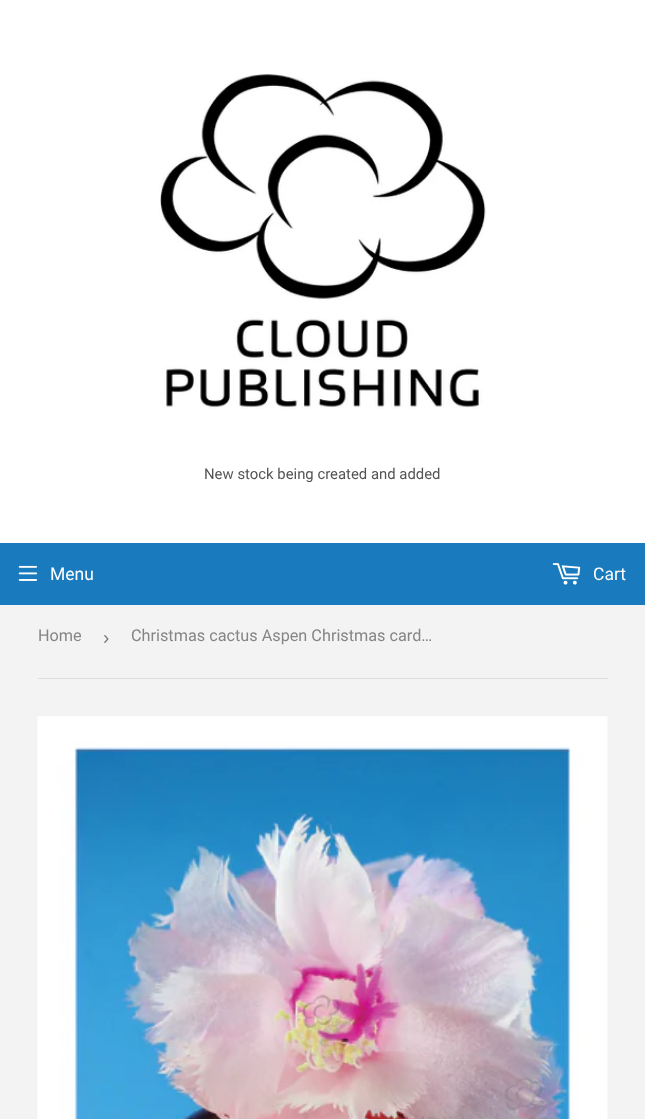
<svg xmlns="http://www.w3.org/2000/svg" width="645" height="1119" viewBox="0 0 645 1119">
  <rect width="100%" height="100%" fill="#f3f3f3"/>
  <rect x="0" y="0" width="645" height="543" fill="#ffffff"/>
  <image x="159" y="74" width="327" height="335" href="img1.png"/>
  <text x="204" y="479" font-family="Roboto" font-size="14.9" fill="#545454">New stock being created and added</text>
  <rect x="0" y="543" width="645" height="62" fill="#197bbd"/>
  <image x="18" y="565" width="20" height="16" href="img2.png"/>
  <text x="50" y="580" font-family="Roboto" font-size="17.5" fill="#ffffff">Menu</text>
  <image x="552" y="563" width="29" height="22" href="img3.png"/>
  <text x="593" y="580" font-family="Roboto" font-size="17.5" fill="#ffffff">Cart</text>
  <rect x="38" y="678" width="570" height="1" fill="#dedede"/>
  <text x="38" y="641" font-family="Roboto" font-size="16.25" fill="#858585">Home</text>
  <text x="103" y="644" font-family="Liberation Sans" font-size="19" fill="#767676">›</text>
  <text x="131" y="641" font-family="Roboto" font-size="16.25" fill="#858585">Christmas cactus Aspen Christmas card…</text>
  <image x="37" y="716" width="571" height="403" href="img4.png"/>
</svg>
